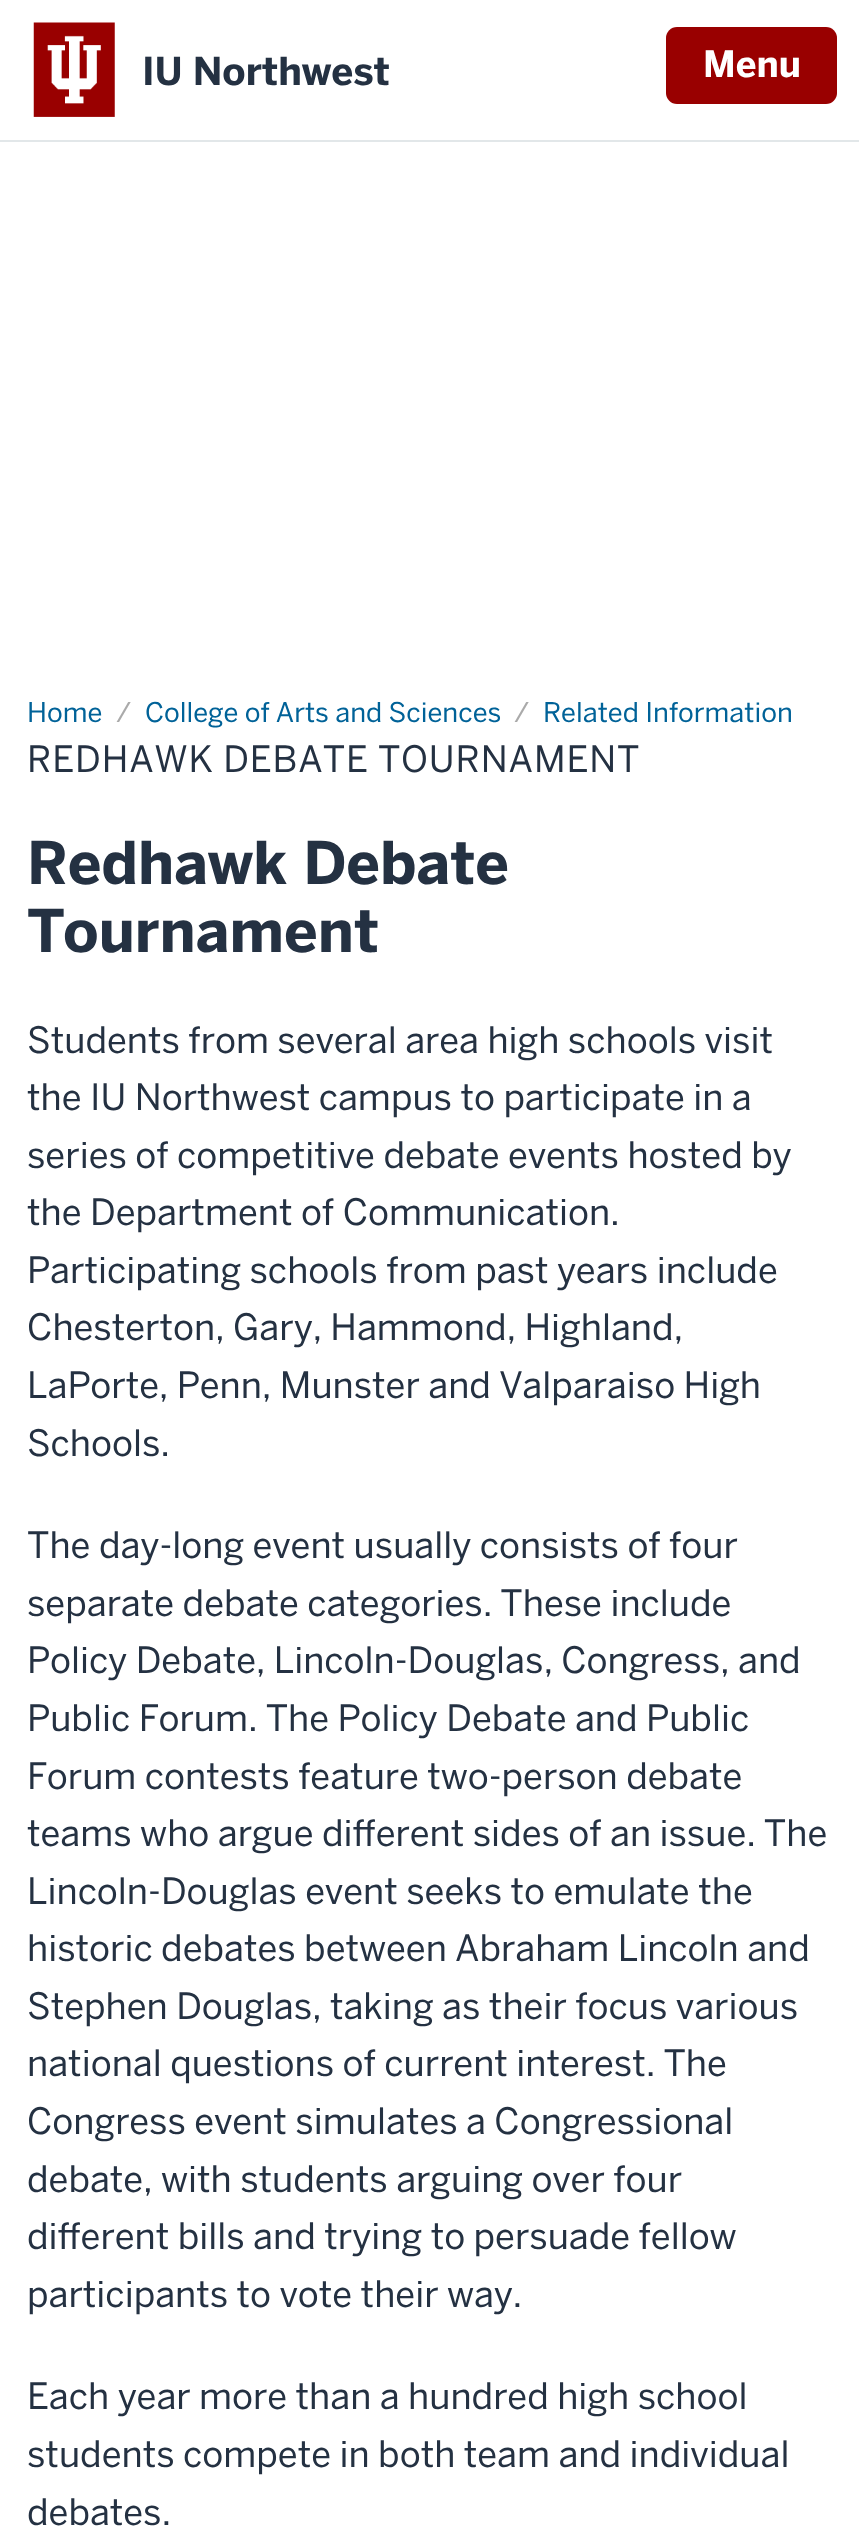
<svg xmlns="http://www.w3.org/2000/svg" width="859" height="2528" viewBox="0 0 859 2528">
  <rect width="100%" height="100%" fill="#ffffff"/>
  <rect x="0" y="140" width="859" height="2" fill="#e2e7e9"/>
  <image x="33" y="22" width="82" height="95" href="img1.png"/>
  <text x="142" y="85" font-family="'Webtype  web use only'" font-size="38.25" font-weight="bold" fill="#243142">IU Northwest</text>
  <rect x="666" y="27" width="171" height="77" rx="11" fill="#990000"/>
  <text x="703" y="77" font-family="'Webtype  web use only'" font-size="36" font-weight="bold" fill="#ffffff">Menu</text>
  <text x="27" y="722" font-family="'Webtype  web use only'" font-size="27" fill="#006298">Home</text>
  <text x="116" y="722" font-family="'Webtype  web use only'" font-size="27" fill="#aaaaaa">/</text>
  <text x="145" y="722" font-family="'Webtype  web use only'" font-size="27" fill="#006298">College of Arts and Sciences</text>
  <text x="514" y="722" font-family="'Webtype  web use only'" font-size="27" fill="#aaaaaa">/</text>
  <text x="543" y="722" font-family="'Webtype  web use only'" font-size="27" fill="#006298">Related Information</text>
  <text x="27" y="772" font-family="'Webtype  web use only'" font-size="36" letter-spacing="0.9" fill="#243142">REDHAWK DEBATE TOURNAMENT</text>
  <text x="27" y="884" font-family="'Webtype  web use only'" font-size="58.5" font-weight="bold" fill="#243142">Redhawk Debate</text>
  <text x="27" y="952" font-family="'Webtype  web use only'" font-size="58.5" font-weight="bold" fill="#243142">Tournament</text>
  <text x="27" y="1053" font-family="'Webtype  web use only'" font-size="36" fill="#243142">Students from several area high schools visit</text>
  <text x="27" y="1110" font-family="'Webtype  web use only'" font-size="36" fill="#243142">the IU Northwest campus to participate in a</text>
  <text x="27" y="1168" font-family="'Webtype  web use only'" font-size="36" fill="#243142">series of competitive debate events hosted by</text>
  <text x="27" y="1225" font-family="'Webtype  web use only'" font-size="36" fill="#243142">the Department of Communication.</text>
  <text x="27" y="1283" font-family="'Webtype  web use only'" font-size="36" fill="#243142">Participating schools from past years include</text>
  <text x="27" y="1340" font-family="'Webtype  web use only'" font-size="36" fill="#243142">Chesterton, Gary, Hammond, Highland,</text>
  <text x="27" y="1398" font-family="'Webtype  web use only'" font-size="36" fill="#243142">LaPorte, Penn, Munster and Valparaiso High</text>
  <text x="27" y="1456" font-family="'Webtype  web use only'" font-size="36" fill="#243142">Schools.</text>
  <text x="27" y="1558" font-family="'Webtype  web use only'" font-size="36" fill="#243142">The day-long event usually consists of four</text>
  <text x="27" y="1616" font-family="'Webtype  web use only'" font-size="36" fill="#243142">separate debate categories. These include</text>
  <text x="27" y="1673" font-family="'Webtype  web use only'" font-size="36" fill="#243142">Policy Debate, Lincoln-Douglas, Congress, and</text>
  <text x="27" y="1731" font-family="'Webtype  web use only'" font-size="36" fill="#243142">Public Forum. The Policy Debate and Public</text>
  <text x="27" y="1789" font-family="'Webtype  web use only'" font-size="36" fill="#243142">Forum contests feature two-person debate</text>
  <text x="27" y="1846" font-family="'Webtype  web use only'" font-size="36" fill="#243142">teams who argue different sides of an issue. The</text>
  <text x="27" y="1904" font-family="'Webtype  web use only'" font-size="36" fill="#243142">Lincoln-Douglas event seeks to emulate the</text>
  <text x="27" y="1961" font-family="'Webtype  web use only'" font-size="36" fill="#243142">historic debates between Abraham Lincoln and</text>
  <text x="27" y="2019" font-family="'Webtype  web use only'" font-size="36" fill="#243142">Stephen Douglas, taking as their focus various</text>
  <text x="27" y="2076" font-family="'Webtype  web use only'" font-size="36" fill="#243142">national questions of current interest. The</text>
  <text x="27" y="2134" font-family="'Webtype  web use only'" font-size="36" fill="#243142">Congress event simulates a Congressional</text>
  <text x="27" y="2192" font-family="'Webtype  web use only'" font-size="36" fill="#243142">debate, with students arguing over four</text>
  <text x="27" y="2249" font-family="'Webtype  web use only'" font-size="36" fill="#243142">different bills and trying to persuade fellow</text>
  <text x="27" y="2307" font-family="'Webtype  web use only'" font-size="36" fill="#243142">participants to vote their way.</text>
  <text x="27" y="2409" font-family="'Webtype  web use only'" font-size="36" fill="#243142">Each year more than a hundred high school</text>
  <text x="27" y="2467" font-family="'Webtype  web use only'" font-size="36" fill="#243142">students compete in both team and individual</text>
  <text x="27" y="2525" font-family="'Webtype  web use only'" font-size="36" fill="#243142">debates.</text>
</svg>
